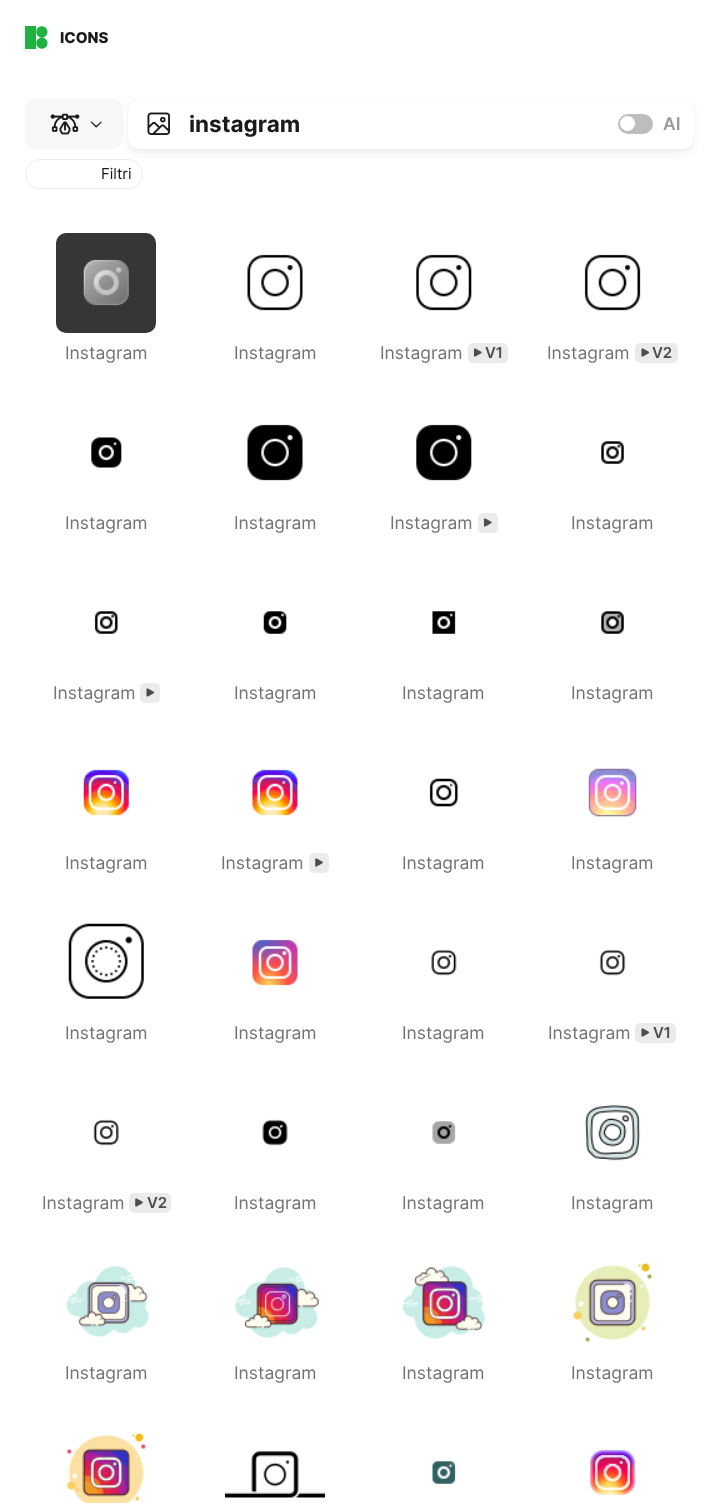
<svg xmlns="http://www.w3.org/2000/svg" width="706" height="1503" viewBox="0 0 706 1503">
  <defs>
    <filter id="blur1" x="-50%" y="-200%" width="200%" height="500%"><feGaussianBlur stdDeviation="5"/></filter>
    <filter id="blur2" x="-50%" y="-200%" width="200%" height="500%"><feGaussianBlur stdDeviation="0.5"/></filter>
  </defs>
  <rect width="100%" height="100%" fill="#ffffff"/>
  <image x="25" y="26" width="23" height="23" href="img1.png"/>
  <text x="60" y="43" font-family="Inter" font-size="15" font-weight="800" fill="#1a1a1a">ICONS</text>
  <rect x="25.5" y="159.5" width="117" height="29" rx="14.5" fill="none" stroke="#ebebeb"/>
  <rect x="130" y="106" width="561" height="45" rx="8" fill="#606060" fill-opacity="0.15" filter="url(#blur1)"/>
  <rect x="25" y="99" width="98" height="50" rx="10" fill="#f7f7f7"/>
  <image x="50" y="113" width="30" height="22" href="img2.png"/>
  <path d="M91.5 121.5L97 126.5L96 127.5L90.5 122Z" fill="#1a1a1a"/>
  <path d="M95.5 126.5L101 121.5L102 122L96.5 127.5Z" fill="#1a1a1a"/>
  <rect x="128" y="99" width="566" height="50" rx="10" fill="#606060" fill-opacity="0.31" filter="url(#blur2)"/>
  <rect x="128" y="99" width="566" height="50" rx="10" fill="#ffffff"/>
  <image x="147" y="112" width="23" height="23" href="img3.png"/>
  <text x="189" y="132" font-family="Inter" font-size="22.5" font-weight="bold" fill="#1a1a1a">instagram</text>
  <rect x="618" y="114" width="35" height="20" rx="10" fill="#bdbdbd"/>
  <circle cx="627.5" cy="123.5" r="7.5" fill="#ffffff"/>
  <text x="663" y="130" font-family="Inter" font-size="17.5" font-weight="600" fill="#999999">AI</text>
  <text x="101" y="179" font-family="Inter" font-size="15" fill="#1a1a1a">Filtri</text>
  <rect x="56" y="233" width="100" height="100" rx="10" fill="#373636"/>
  <image x="83" y="259" width="46" height="47" href="img4.png"/>
  <text x="65" y="359" font-family="Inter" font-size="17.5" fill="#737373">Instagram</text>
  <image x="247" y="254" width="56" height="57" href="img5.png"/>
  <text x="234" y="359" font-family="Inter" font-size="17.5" fill="#737373">Instagram</text>
  <image x="416" y="254" width="56" height="57" href="img6.png"/>
  <text x="380" y="359" font-family="Inter" font-size="17.5" fill="#737373">Instagram</text>
  <rect x="468" y="343" width="40" height="20" rx="5" fill="#ebebeb"/>
  <image x="473" y="348" width="9" height="9" href="img7.png"/>
  <text x="485" y="358" font-family="Inter" font-size="15" font-weight="600" fill="#4d4d4d">V1</text>
  <image x="584" y="254" width="57" height="57" href="img8.png"/>
  <text x="547" y="359" font-family="Inter" font-size="17.5" fill="#737373">Instagram</text>
  <rect x="635" y="343" width="43" height="20" rx="5" fill="#ebebeb"/>
  <image x="641" y="348" width="9" height="9" href="img9.png"/>
  <text x="652" y="358" font-family="Inter" font-size="15" font-weight="600" fill="#4d4d4d">V2</text>
  <image x="91" y="437" width="31" height="31" href="img10.png"/>
  <text x="65" y="529" font-family="Inter" font-size="17.5" fill="#737373">Instagram</text>
  <image x="247" y="424" width="56" height="57" href="img11.png"/>
  <text x="234" y="529" font-family="Inter" font-size="17.5" fill="#737373">Instagram</text>
  <image x="416" y="424" width="56" height="57" href="img12.png"/>
  <text x="390" y="529" font-family="Inter" font-size="17.5" fill="#737373">Instagram</text>
  <rect x="478" y="513" width="20" height="20" rx="5" fill="#ebebeb"/>
  <image x="483" y="518" width="9" height="9" href="img7.png"/>
  <image x="601" y="441" width="23" height="23" href="img13.png"/>
  <text x="571" y="529" font-family="Inter" font-size="17.5" fill="#737373">Instagram</text>
  <image x="94" y="611" width="24" height="23" href="img14.png"/>
  <text x="53" y="699" font-family="Inter" font-size="17.5" fill="#737373">Instagram</text>
  <rect x="140" y="683" width="20" height="20" rx="5" fill="#ebebeb"/>
  <image x="146" y="688" width="9" height="9" href="img9.png"/>
  <image x="263" y="611" width="24" height="23" href="img15.png"/>
  <text x="234" y="699" font-family="Inter" font-size="17.5" fill="#737373">Instagram</text>
  <image x="432" y="611" width="24" height="23" href="img16.png"/>
  <text x="402" y="699" font-family="Inter" font-size="17.5" fill="#737373">Instagram</text>
  <image x="601" y="611" width="23" height="23" href="img17.png"/>
  <text x="571" y="699" font-family="Inter" font-size="17.5" fill="#737373">Instagram</text>
  <image x="83" y="769" width="46" height="47" href="img18.png"/>
  <text x="65" y="869" font-family="Inter" font-size="17.5" fill="#737373">Instagram</text>
  <image x="252" y="769" width="46" height="47" href="img19.png"/>
  <text x="221" y="869" font-family="Inter" font-size="17.5" fill="#737373">Instagram</text>
  <rect x="309" y="853" width="20" height="20" rx="5" fill="#ebebeb"/>
  <image x="315" y="858" width="8" height="9" href="img20.png"/>
  <image x="429" y="778" width="29" height="29" href="img21.png"/>
  <text x="402" y="869" font-family="Inter" font-size="17.5" fill="#737373">Instagram</text>
  <image x="588" y="768" width="49" height="49" href="img22.png"/>
  <text x="571" y="869" font-family="Inter" font-size="17.5" fill="#737373">Instagram</text>
  <image x="68" y="923" width="76" height="76" href="img23.png"/>
  <text x="65" y="1039" font-family="Inter" font-size="17.5" fill="#737373">Instagram</text>
  <image x="252" y="939" width="46" height="47" href="img24.png"/>
  <text x="234" y="1039" font-family="Inter" font-size="17.5" fill="#737373">Instagram</text>
  <image x="431" y="949" width="26" height="27" href="img25.png"/>
  <text x="402" y="1039" font-family="Inter" font-size="17.5" fill="#737373">Instagram</text>
  <image x="599" y="949" width="27" height="27" href="img26.png"/>
  <text x="548" y="1039" font-family="Inter" font-size="17.5" fill="#737373">Instagram</text>
  <rect x="635" y="1023" width="41" height="20" rx="5" fill="#ebebeb"/>
  <image x="641" y="1028" width="9" height="9" href="img9.png"/>
  <text x="653" y="1038" font-family="Inter" font-size="15" font-weight="600" fill="#4d4d4d">V1</text>
  <image x="93" y="1119" width="26" height="27" href="img27.png"/>
  <text x="42" y="1209" font-family="Inter" font-size="17.5" fill="#737373">Instagram</text>
  <rect x="129" y="1193" width="42" height="20" rx="5" fill="#ebebeb"/>
  <image x="135" y="1198" width="8" height="9" href="img20.png"/>
  <text x="147" y="1208" font-family="Inter" font-size="15" font-weight="600" fill="#4d4d4d">V2</text>
  <image x="262" y="1119" width="26" height="27" href="img28.png"/>
  <text x="234" y="1209" font-family="Inter" font-size="17.5" fill="#737373">Instagram</text>
  <image x="432" y="1121" width="24" height="23" href="img29.png"/>
  <text x="402" y="1209" font-family="Inter" font-size="17.5" fill="#737373">Instagram</text>
  <image x="585" y="1104" width="56" height="57" href="img30.png"/>
  <text x="571" y="1209" font-family="Inter" font-size="17.5" fill="#737373">Instagram</text>
  <image x="66" y="1266" width="83" height="72" href="img31.png"/>
  <text x="65" y="1379" font-family="Inter" font-size="17.5" fill="#737373">Instagram</text>
  <image x="235" y="1266" width="84" height="72" href="img32.png"/>
  <text x="234" y="1379" font-family="Inter" font-size="17.5" fill="#737373">Instagram</text>
  <image x="402" y="1266" width="84" height="73" href="img33.png"/>
  <text x="402" y="1379" font-family="Inter" font-size="17.5" fill="#737373">Instagram</text>
  <image x="572" y="1262" width="81" height="81" href="img34.png"/>
  <text x="571" y="1379" font-family="Inter" font-size="17.5" fill="#737373">Instagram</text>
  <image x="66" y="1432" width="81" height="71" href="img35.png"/>
  <image x="225" y="1451" width="100" height="47" href="img36.png"/>
  <image x="432" y="1461" width="24" height="23" href="img37.png"/>
  <image x="589" y="1449" width="47" height="47" href="img38.png"/>
</svg>
